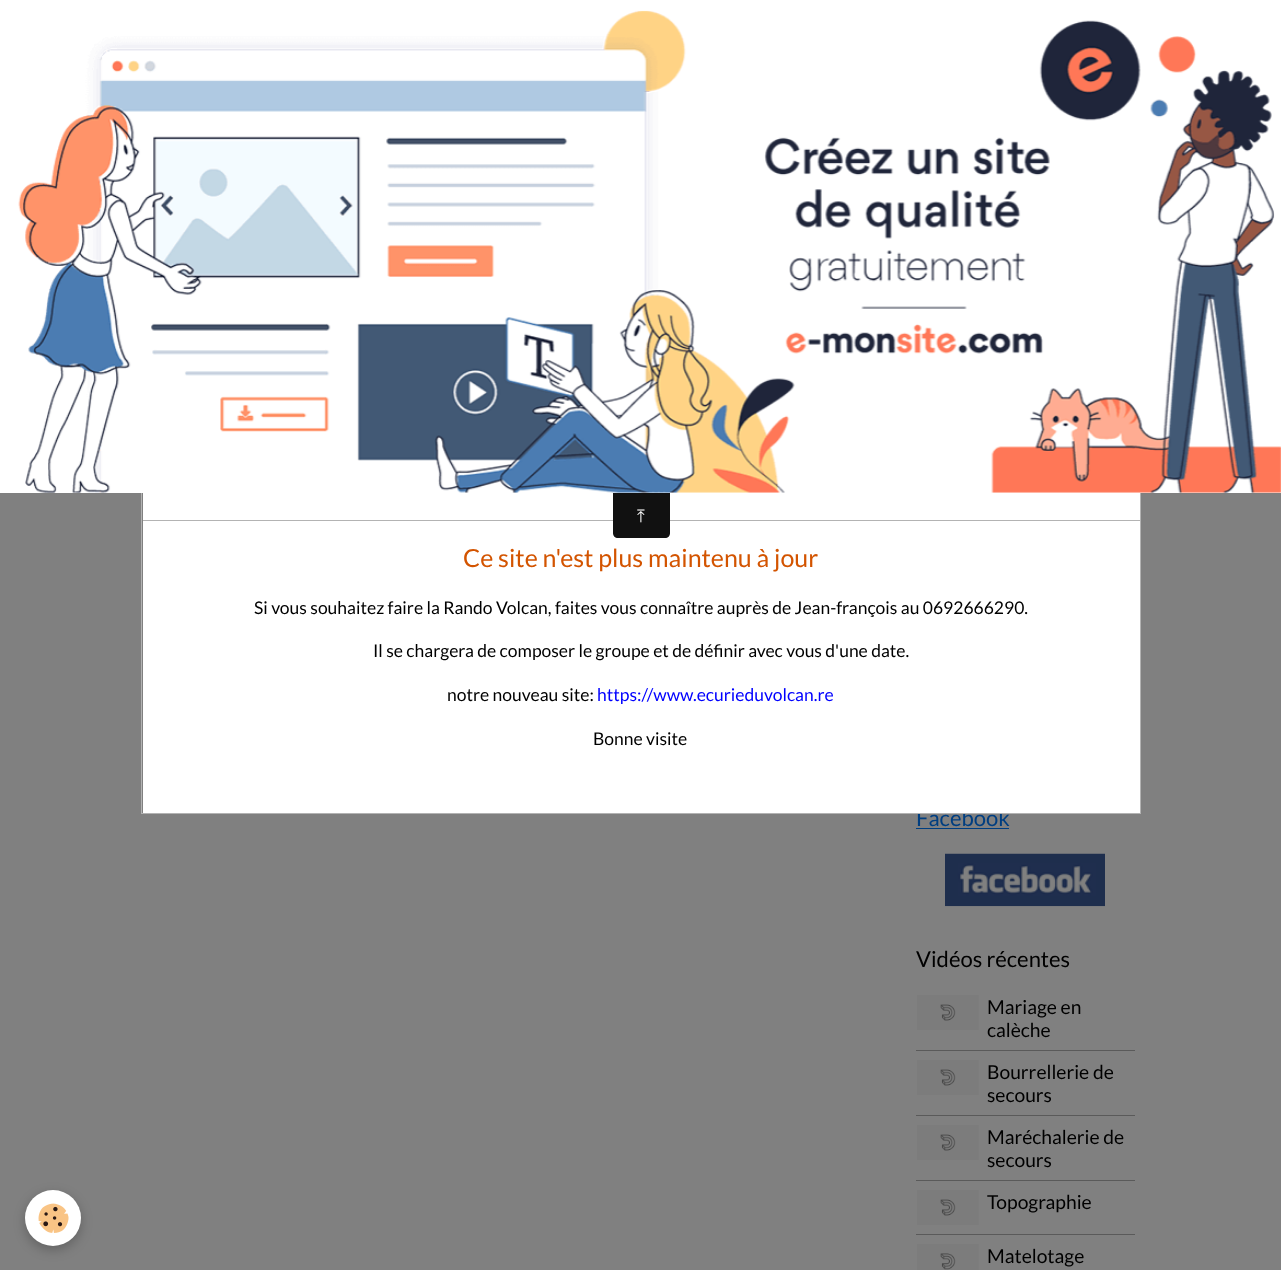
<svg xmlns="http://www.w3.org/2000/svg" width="1281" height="1270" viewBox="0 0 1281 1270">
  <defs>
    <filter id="blur1" x="-50%" y="-200%" width="200%" height="500%"><feGaussianBlur stdDeviation="6"/></filter>
  </defs>
  <rect width="100%" height="100%" fill="#808080"/>
  <text x="916" y="826" font-family="Lato" font-size="22" fill="#003e80">Facebook</text>
  <rect x="143" y="493" width="997" height="320" fill="#ffffff"/>
  <rect x="141.5" y="456.5" width="999" height="357" fill="none" stroke="#b3b3b3"/>
  <rect x="0" y="0" width="1281" height="493" fill="#ffffff"/>
  <image x="18" y="10" width="1263" height="483" href="img1.png"/>
  <rect x="143" y="520" width="997" height="1" fill="#b3b3b3"/>
  <path d="M613 493H670V533C670 536 668 538 665 538H618C615 538 613 536 613 533Z" fill="#111111"/>
  <text x="637" y="522" font-family="FreeSerif" font-size="17.5" fill="#ffffff">⤒</text>
  <text x="463" y="567" font-family="Lato" font-size="25" fill="#d35400">Ce site n'est plus maintenu à jour</text>
  <text x="254" y="614" font-family="Lato" font-size="17.5" fill="#000000">Si vous souhaitez faire la Rando Volcan, faites vous connaître auprès de Jean-françois au 0692666290.</text>
  <text x="373" y="657" font-family="Lato" font-size="17.5" fill="#000000">Il se chargera de composer le groupe et de définir avec vous d'une date.</text>
  <text x="447" y="701" font-family="Lato" font-size="17.5" fill="#000000">notre nouveau site:</text>
  <text x="597" y="701" font-family="Lato" font-size="17.5" fill="#0000ff">https://www.ecurieduvolcan.re</text>
  <text x="593" y="745" font-family="Lato" font-size="17.5" fill="#000000">Bonne visite</text>
  <rect x="25" y="1194" width="56" height="56" rx="28" fill="#000000" fill-opacity="0.24" filter="url(#blur1)"/>
  <circle cx="53" cy="1218" r="28" fill="#ffffff"/>
  <image x="38" y="1203" width="31" height="30" href="img2.png"/>
  <rect x="916" y="828" width="93" height="1" fill="#003e80"/>
  <image x="945" y="853" width="160" height="54" href="img3.png"/>
  <text x="916" y="967" font-family="Lato" font-size="22" fill="#000000">Vidéos récentes</text>
  <image x="917" y="995" width="62" height="35" href="img4.png"/>
  <text x="987" y="1014" font-family="Lato" font-size="19.25" fill="#000000">Mariage en</text>
  <text x="987" y="1037" font-family="Lato" font-size="19.25" fill="#000000">calèche</text>
  <rect x="916" y="1050" width="219" height="1" fill="#5a5a5a"/>
  <image x="917" y="1060" width="62" height="35" href="img4.png"/>
  <text x="987" y="1079" font-family="Lato" font-size="19.25" fill="#000000">Bourrellerie de</text>
  <text x="987" y="1102" font-family="Lato" font-size="19.25" fill="#000000">secours</text>
  <rect x="916" y="1115" width="219" height="1" fill="#5a5a5a"/>
  <image x="917" y="1125" width="62" height="35" href="img4.png"/>
  <text x="987" y="1144" font-family="Lato" font-size="19.25" fill="#000000">Maréchalerie de</text>
  <text x="987" y="1167" font-family="Lato" font-size="19.25" fill="#000000">secours</text>
  <rect x="916" y="1180" width="219" height="1" fill="#5a5a5a"/>
  <image x="917" y="1190" width="62" height="35" href="img4.png"/>
  <text x="987" y="1209" font-family="Lato" font-size="19.25" fill="#000000">Topographie</text>
  <rect x="916" y="1234" width="219" height="1" fill="#5a5a5a"/>
  <image x="917" y="1244" width="62" height="26" href="img5.png"/>
  <text x="987" y="1263" font-family="Lato" font-size="19.25" fill="#000000">Matelotage</text>
</svg>
